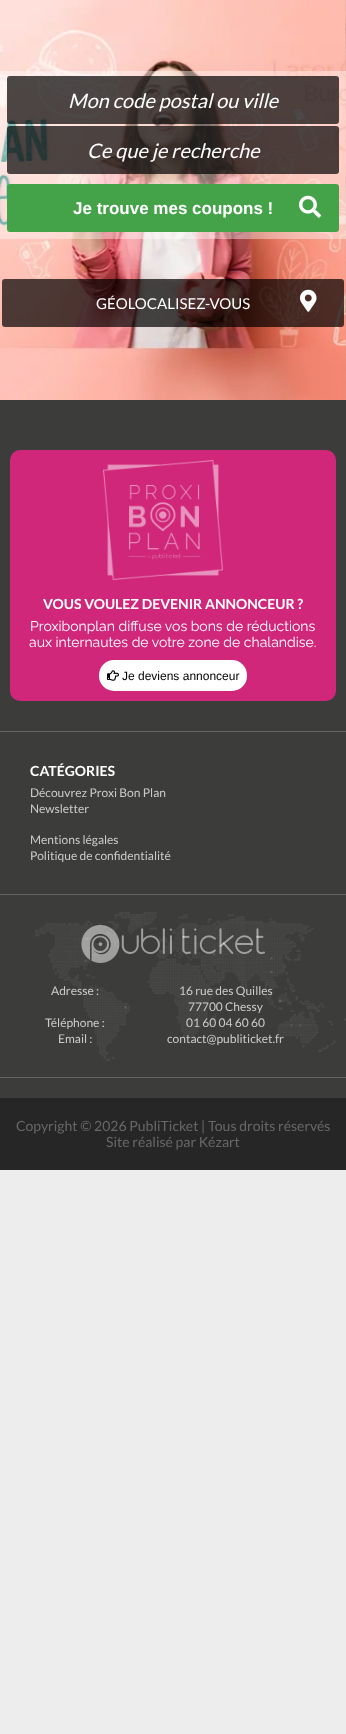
<svg xmlns="http://www.w3.org/2000/svg" width="346" height="1734" viewBox="0 0 346 1734">
  <rect width="100%" height="100%" fill="#ededed"/>
  <image x="345" y="0" width="1" height="400" href="img2.png"/>
  <image x="0" y="0" width="346" height="400" href="img1.png"/>
  <rect x="0" y="71" width="346" height="168" fill="#ffffff" fill-opacity="0.4"/>
  <rect x="7" y="76" width="332" height="48" rx="3" fill="#000000" fill-opacity="0.7"/>
  <text x="68" y="108" font-family="Lato" font-size="20" font-style="italic" fill="#ffffff">Mon code postal ou ville</text>
  <rect x="7" y="126" width="332" height="48" rx="3" fill="#000000" fill-opacity="0.7"/>
  <text x="87" y="158" font-family="Lato" font-size="20" font-style="italic" fill="#ffffff">Ce que je recherche</text>
  <rect x="7" y="184" width="332" height="48" rx="3" fill="#44a248"/>
  <text x="73" y="214" font-family="Liberation Sans" font-size="17" font-weight="bold" fill="#ffffff">Je trouve mes coupons !</text>
  <image x="299" y="195" width="22" height="23" href="img3.png"/>
  <rect x="2" y="279" width="342" height="48" rx="3" fill="#000000" fill-opacity="0.7"/>
  <text x="96" y="309" font-family="Lato" font-size="15" fill="#ffffff">GÉOLOCALISEZ-VOUS</text>
  <image x="300" y="289" width="17" height="23" href="img4.png"/>
  <rect x="0" y="400" width="346" height="698" fill="#3c3c3b"/>
  <rect x="0" y="731" width="346" height="1" fill="#636362"/>
  <rect x="10" y="450" width="326" height="251" rx="10" fill="#d1277b"/>
  <image x="103" y="460" width="120" height="120" href="img5.png"/>
  <text x="43" y="609" font-family="Lato" font-size="14" font-weight="bold" fill="#ffffff">VOUS VOULEZ DEVENIR ANNONCEUR ?</text>
  <text x="30" y="631" font-family="Raleway" font-size="14" fill="#ffffff">Proxibonplan diffuse vos bons de réductions</text>
  <text x="29" y="647" font-family="Raleway" font-size="14" fill="#ffffff">aux internautes de votre zone de chalandise.</text>
  <rect x="99" y="660" width="148" height="31" rx="15" fill="#ffffff"/>
  <image x="107" y="670" width="12" height="11" href="img6.png"/>
  <text x="122" y="680" font-family="Liberation Sans" font-size="12" fill="#000000">Je deviens annonceur</text>
  <rect x="0" y="894" width="346" height="1" fill="#636362"/>
  <text x="30" y="776" font-family="Lato" font-size="14" font-weight="bold" fill="#ffffff">CATÉGORIES</text>
  <text x="30" y="797" font-family="Lato" font-size="12" fill="#cccccc">Découvrez Proxi Bon Plan</text>
  <text x="30" y="813" font-family="Lato" font-size="12" fill="#cccccc">Newsletter</text>
  <text x="30" y="844" font-family="Lato" font-size="12" fill="#cccccc">Mentions légales</text>
  <text x="30" y="860" font-family="Lato" font-size="12" fill="#cccccc">Politique de confidentialité</text>
  <image x="35" y="912" width="311" height="149" href="img7.png"/>
  <rect x="0" y="1077" width="346" height="1" fill="#636362"/>
  <image x="81" y="925" width="184" height="38" href="img8.png"/>
  <text x="51" y="995" font-family="Lato" font-size="12" fill="#cccccc">Adresse :</text>
  <text x="179" y="995" font-family="Lato" font-size="12" fill="#cccccc">16 rue des Quilles</text>
  <text x="188" y="1011" font-family="Lato" font-size="12" fill="#cccccc">77700 Chessy</text>
  <text x="45" y="1027" font-family="Lato" font-size="12" fill="#cccccc">Téléphone :</text>
  <text x="186" y="1027" font-family="Lato" font-size="12" fill="#cccccc">01 60 04 60 60</text>
  <text x="58" y="1043" font-family="Lato" font-size="12" fill="#cccccc">Email :</text>
  <text x="167" y="1043" font-family="Lato" font-size="12" fill="#cccccc">contact@publiticket.fr</text>
  <rect x="0" y="1098" width="346" height="72" fill="#262626"/>
  <text x="16" y="1131" font-family="Lato" font-size="14" fill="#686868">Copyright © 2026 PubliTicket | Tous droits réservés</text>
  <text x="106" y="1147" font-family="Lato" font-size="14" fill="#686868">Site réalisé par Kézart</text>
</svg>
